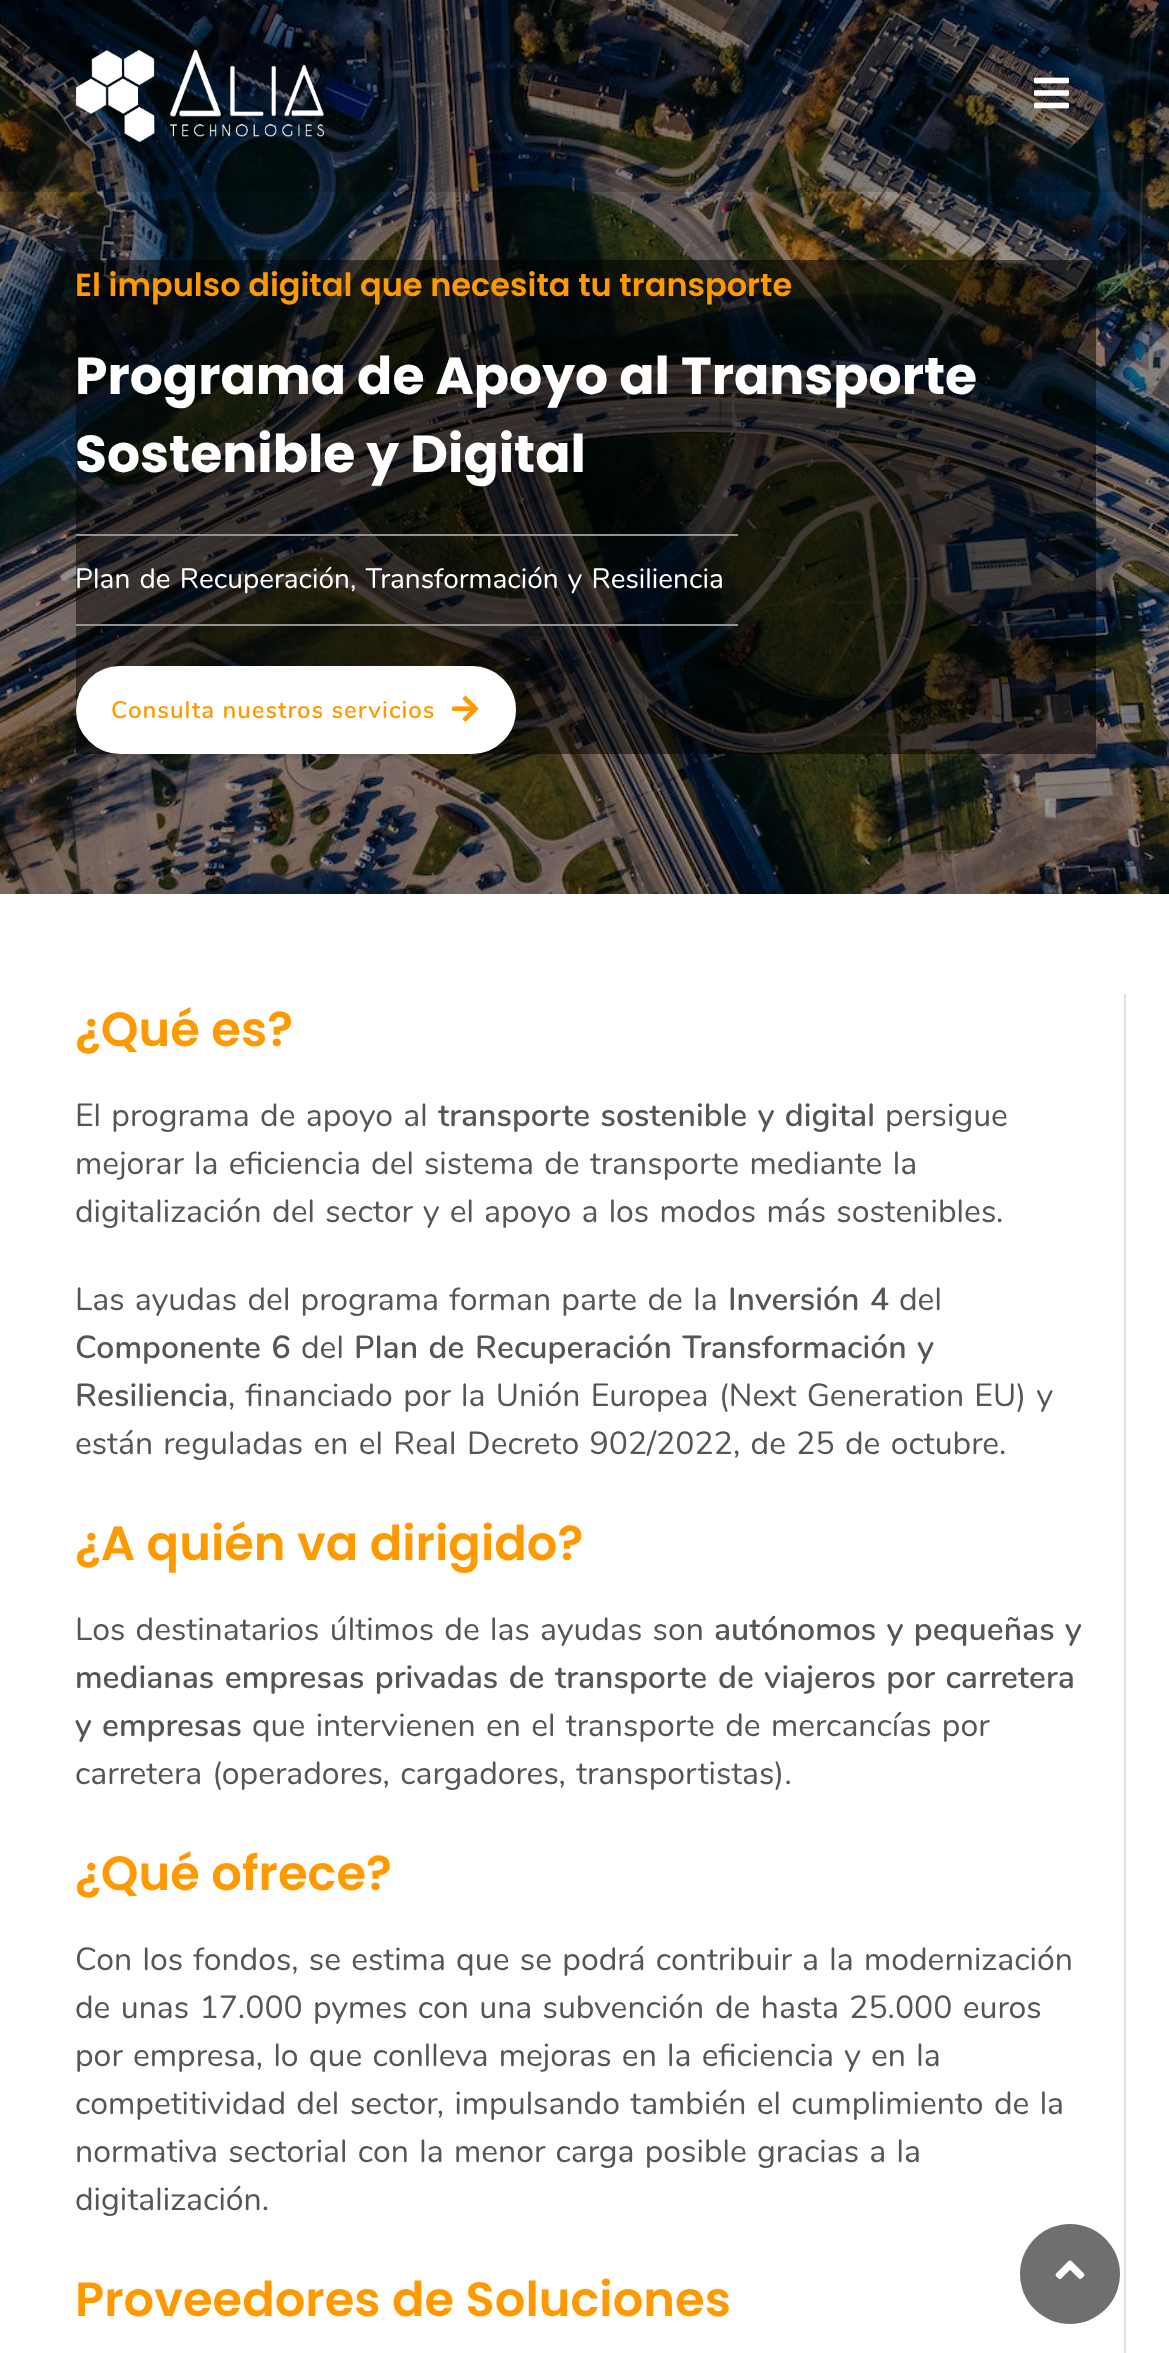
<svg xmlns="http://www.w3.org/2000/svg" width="1169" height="2353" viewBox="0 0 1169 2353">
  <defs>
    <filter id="blur1" x="-50%" y="-200%" width="200%" height="500%"><feGaussianBlur stdDeviation="1"/></filter>
  </defs>
  <rect width="100%" height="100%" fill="#ffffff"/>
  <image x="0" y="0" width="1169" height="894" href="img3.png"/>
  <rect x="0" y="0" width="1169" height="192" fill="#000000" fill-opacity="0.15"/>
  <image x="76" y="50" width="248" height="92" href="img1.png"/>
  <image x="1034" y="77" width="35" height="32" href="img2.png"/>
  <rect x="76" y="260" width="1020" height="494" fill="#000000" fill-opacity="0.5"/>
  <text x="75" y="296" font-family="Poppins" font-size="32" font-weight="600" fill="#ff9900">El impulso digital que necesita tu transporte</text>
  <text x="75" y="394" font-family="Poppins" font-size="52" font-weight="bold" fill="#ffffff">Programa de Apoyo al Transporte</text>
  <text x="75" y="472" font-family="Poppins" font-size="52" font-weight="bold" fill="#ffffff">Sostenible y Digital</text>
  <rect x="76" y="534" width="662" height="2" fill="#939393"/>
  <rect x="76" y="624" width="662" height="2" fill="#939393"/>
  <text x="75" y="588" word-spacing="2" font-family="Nunito" font-size="28" fill="#ffffff">Plan de Recuperación, Transformación y Resiliencia</text>
  <rect x="76" y="670" width="440" height="88" rx="44" fill="#000000" fill-opacity="0.1" filter="url(#blur1)"/>
  <rect x="78" y="668" width="436" height="84" rx="42" fill="#ffffff" stroke="#ffffff" stroke-width="4"/>
  <text x="111" y="718" font-family="Nunito" font-size="24" font-weight="600" letter-spacing="1" fill="#ff9900">Consulta nuestros servicios</text>
  <image x="452" y="696" width="27" height="26" href="img4.png"/>
  <rect x="1124" y="994" width="2" height="1359" fill="#dee2e6"/>
  <text x="75" y="1046" font-family="Poppins" font-size="48" font-weight="600" fill="#ff9900">¿Qué es?</text>
  <text x="75" y="1126" word-spacing="2" font-family="Nunito" font-size="32" fill="#555555">El programa de apoyo al</text>
  <text x="438" y="1126" word-spacing="2" font-family="Nunito" font-size="32" font-weight="600" fill="#555555">transporte sostenible y digital</text>
  <text x="885" y="1126" font-family="Nunito" font-size="32" fill="#555555">persigue</text>
  <text x="75" y="1174" word-spacing="2" font-family="Nunito" font-size="32" fill="#555555">mejorar la eficiencia del</text>
  <text x="424" y="1174" word-spacing="2" font-family="Nunito" font-size="32" fill="#555555">sistema de transporte mediante la</text>
  <text x="75" y="1222" word-spacing="2" font-family="Nunito" font-size="32" fill="#555555">digitalización del sector y el</text>
  <text x="484" y="1222" word-spacing="2" font-family="Nunito" font-size="32" fill="#555555">apoyo a los modos más sostenibles.</text>
  <text x="75" y="1310" word-spacing="2" font-family="Nunito" font-size="32" fill="#555555">Las ayudas del programa forman parte de la</text>
  <text x="728" y="1310" word-spacing="2" font-family="Nunito" font-size="32" font-weight="600" fill="#555555">Inversión 4</text>
  <text x="899" y="1310" font-family="Nunito" font-size="32" fill="#555555">del</text>
  <text x="75" y="1358" word-spacing="2" font-family="Nunito" font-size="32" font-weight="600" fill="#555555">Componente 6</text>
  <text x="301" y="1358" font-family="Nunito" font-size="32" fill="#555555">del</text>
  <text x="354" y="1358" word-spacing="2" font-family="Nunito" font-size="32" font-weight="600" fill="#555555">Plan de Recuperación Transformación y</text>
  <text x="75" y="1406" font-family="Nunito" font-size="32" font-weight="600" fill="#555555">Resiliencia</text>
  <text x="228" y="1406" word-spacing="2" font-family="Nunito" font-size="32" fill="#555555">, financiado por la Unión Europea (Next Generation EU) y</text>
  <text x="75" y="1454" word-spacing="2" font-family="Nunito" font-size="32" fill="#555555">están reguladas en el Real</text>
  <text x="467" y="1454" word-spacing="2" font-family="Nunito" font-size="32" fill="#555555">Decreto 902/2022, de 25 de octubre.</text>
  <text x="75" y="1560" font-family="Poppins" font-size="48" font-weight="600" fill="#ff9900">¿A quién va dirigido?</text>
  <text x="75" y="1640" word-spacing="2" font-family="Nunito" font-size="32" fill="#555555">Los destinatarios últimos de las ayudas son</text>
  <text x="714" y="1640" word-spacing="2" font-family="Nunito" font-size="32" font-weight="600" fill="#555555">autónomos y pequeñas y</text>
  <text x="75" y="1688" word-spacing="2" font-family="Nunito" font-size="32" font-weight="600" fill="#555555">medianas empresas privadas de</text>
  <text x="555" y="1688" font-family="Nunito" font-size="32" font-weight="600" fill="#555555">transporte</text>
  <text x="718" y="1688" word-spacing="2" font-family="Nunito" font-size="32" font-weight="600" fill="#555555">de viajeros por carretera</text>
  <text x="75" y="1736" word-spacing="2" font-family="Nunito" font-size="32" font-weight="600" fill="#555555">y empresas</text>
  <text x="252" y="1736" word-spacing="2" font-family="Nunito" font-size="32" fill="#555555">que intervienen en el transporte de mercancías por</text>
  <text x="75" y="1784" font-family="Nunito" font-size="32" fill="#555555">carretera</text>
  <text x="212" y="1784" word-spacing="2" font-family="Nunito" font-size="32" fill="#555555">(operadores, cargadores, transportistas).</text>
  <text x="75" y="1890" font-family="Poppins" font-size="48" font-weight="600" fill="#ff9900">¿Qué ofrece?</text>
  <text x="75" y="1970" word-spacing="2" font-family="Nunito" font-size="32" fill="#555555">Con los fondos, se estima que se podrá contribuir a la modernización</text>
  <text x="75" y="2018" word-spacing="2" font-family="Nunito" font-size="32" fill="#555555">de unas 17.000 pymes con una subvención</text>
  <text x="715" y="2018" word-spacing="2" font-family="Nunito" font-size="32" fill="#555555">de hasta 25.000 euros</text>
  <text x="75" y="2066" word-spacing="2" font-family="Nunito" font-size="32" fill="#555555">por empresa, lo que conlleva mejoras en la eficiencia y en la</text>
  <text x="75" y="2114" word-spacing="2" font-family="Nunito" font-size="32" fill="#555555">competitividad del</text>
  <text x="350" y="2114" word-spacing="2" font-family="Nunito" font-size="32" fill="#555555">sector, impulsando también el cumplimiento de la</text>
  <text x="75" y="2162" word-spacing="2" font-family="Nunito" font-size="32" fill="#555555">normativa sectorial con la menor carga posible gracias a la</text>
  <text x="75" y="2210" font-family="Nunito" font-size="32" fill="#555555">digitalización.</text>
  <text x="75" y="2316" font-family="Poppins" font-size="48" font-weight="600" fill="#ff9900">Proveedores de Soluciones</text>
  <circle cx="1070" cy="2274" r="50" fill="#6f6f6f"/>
  <image x="1055" y="2260" width="30" height="19" href="img5.png"/>
</svg>
